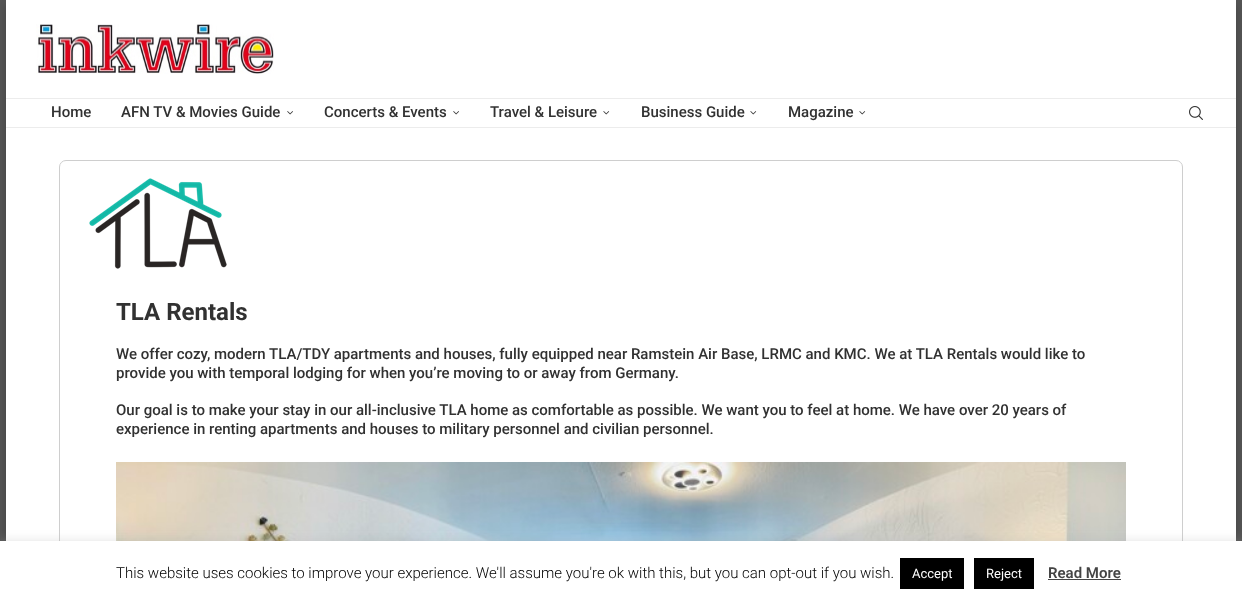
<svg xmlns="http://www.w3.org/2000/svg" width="1242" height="606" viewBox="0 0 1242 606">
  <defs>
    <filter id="blur1" x="-50%" y="-200%" width="200%" height="500%"><feGaussianBlur stdDeviation="4"/></filter>
    <filter id="blur2" x="-50%" y="-200%" width="200%" height="500%"><feGaussianBlur stdDeviation="5"/></filter>
  </defs>
  <rect width="100%" height="100%" fill="#545454"/>
  <rect x="6" y="5" width="1230" height="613" fill="#000000" fill-opacity="0.2" filter="url(#blur1)"/>
  <rect x="6" y="0" width="1230" height="541" fill="#ffffff"/>
  <image x="36" y="24" width="238" height="50" href="img1.png"/>
  <rect x="6" y="98" width="1230" height="1" fill="#ececec"/>
  <rect x="6" y="127" width="1230" height="1" fill="#ececec"/>
  <text x="51" y="117" font-family="Roboto" font-size="15" font-weight="500" fill="#313131">Home</text>
  <text x="121" y="117" font-family="Roboto" font-size="15" font-weight="500" fill="#313131">AFN TV &amp; Movies Guide</text>
  <image x="287" y="111" width="6" height="4" href="img2.png"/>
  <text x="324" y="117" font-family="Roboto" font-size="15" font-weight="500" fill="#313131">Concerts &amp; Events</text>
  <image x="453" y="111" width="6" height="4" href="img3.png"/>
  <text x="490" y="117" font-family="Roboto" font-size="15" font-weight="500" fill="#313131">Travel &amp; Leisure</text>
  <image x="603" y="111" width="7" height="4" href="img4.png"/>
  <text x="641" y="117" font-family="Roboto" font-size="15" font-weight="500" fill="#313131">Business Guide</text>
  <image x="750" y="111" width="7" height="4" href="img5.png"/>
  <text x="788" y="117" font-family="Roboto" font-size="15" font-weight="500" fill="#313131">Magazine</text>
  <image x="859" y="111" width="7" height="4" href="img6.png"/>
  <image x="1189" y="106" width="14" height="14" href="img7.png"/>
  <rect x="59.5" y="160.5" width="1123" height="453" rx="6.5" fill="none" stroke="#cecece"/>
  <image x="89" y="178" width="138" height="91" href="img8.png"/>
  <text x="116" y="320" font-family="Roboto" font-size="24" font-weight="bold" fill="#313131">TLA Rentals</text>
  <text x="116" y="359" font-family="Roboto" font-size="15" font-weight="500" fill="#313131">We offer cozy, modern TLA/TDY apartments and houses, fully equipped near Ramstein Air Base, LRMC and KMC. We at TLA Rentals would like to</text>
  <text x="116" y="378" font-family="Roboto" font-size="15" font-weight="500" fill="#313131">provide you with temporal lodging for when you’re moving to or away from Germany.</text>
  <text x="116" y="415" font-family="Roboto" font-size="15" font-weight="500" fill="#313131">Our goal is to make your stay in our all-inclusive TLA home as comfortable as possible. We want you to feel at home. We have over 20 years of</text>
  <text x="116" y="434" font-family="Roboto" font-size="15" font-weight="500" fill="#313131">experience in renting apartments and houses to military personnel and civilian personnel.</text>
  <image x="116" y="462" width="1010" height="79" href="img9.png"/>
  <rect x="0" y="540" width="1242" height="65" fill="#acabab" fill-opacity="0.3" filter="url(#blur2)"/>
  <rect x="0" y="541" width="1242" height="65" fill="#ffffff"/>
  <text x="116" y="578" font-family="Roboto" font-size="15" font-weight="300" fill="#000000">This website uses cookies to improve your experience. We'll assume you're ok with this, but you can opt-out if you wish.</text>
  <rect x="900" y="558" width="64" height="31" fill="#000000"/>
  <text x="912" y="578" font-family="Roboto" font-size="13" fill="#ffffff">Accept</text>
  <rect x="974" y="558" width="60" height="31" fill="#000000"/>
  <text x="986" y="578" font-family="Roboto" font-size="13" fill="#ffffff">Reject</text>
  <text x="1048" y="578" font-family="Roboto" font-size="15" font-weight="600" fill="#444444">Read More</text>
  <rect x="1048" y="579" width="73" height="1" fill="#444444"/>
</svg>
